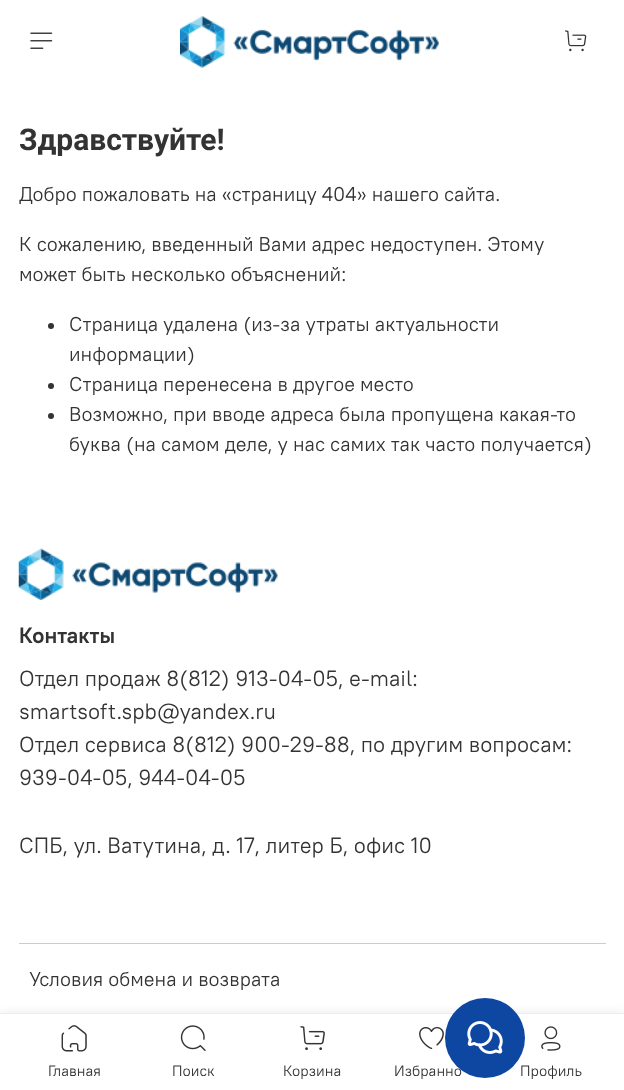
<svg xmlns="http://www.w3.org/2000/svg" width="624" height="1090" viewBox="0 0 624 1090">
  <defs>
    <filter id="blur1" x="-50%" y="-200%" width="200%" height="500%"><feGaussianBlur stdDeviation="6"/></filter>
  </defs>
  <rect width="100%" height="100%" fill="#ffffff"/>
  <image x="30" y="32" width="23" height="17" href="img1.png"/>
  <image x="180" y="16" width="259" height="52" href="img2.png"/>
  <image x="565" y="30" width="22" height="22" href="img3.png"/>
  <text x="19" y="150" font-family="Roboto" font-size="30" font-weight="bold" fill="#333333">Здравствуйте!</text>
  <text x="19" y="201" font-family="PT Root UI" font-size="20" fill="#333333">Добро пожаловать на «страницу 404» нашего сайта.</text>
  <text x="19" y="251" font-family="PT Root UI" font-size="20" fill="#333333">К сожалению, введенный Вами адрес недоступен. Этому</text>
  <text x="19" y="281" font-family="PT Root UI" font-size="20" fill="#333333">может быть несколько объяснений:</text>
  <circle cx="51" cy="326" r="3" fill="#333333"/>
  <text x="69" y="331" font-family="PT Root UI" font-size="20" fill="#333333">Страница удалена (из-за утраты актуальности</text>
  <text x="69" y="361" font-family="PT Root UI" font-size="20" fill="#333333">информации)</text>
  <circle cx="51" cy="386" r="3" fill="#333333"/>
  <text x="69" y="391" font-family="PT Root UI" font-size="20" fill="#333333">Страница перенесена в другое место</text>
  <circle cx="51" cy="416" r="3" fill="#333333"/>
  <text x="69" y="421" font-family="PT Root UI" font-size="20" fill="#333333">Возможно, при вводе адреса была пропущена какая-то</text>
  <text x="69" y="451" font-family="PT Root UI" font-size="20" fill="#333333">буква (на самом деле, у нас самих так часто получается)</text>
  <image x="18" y="548" width="260" height="52" href="img4.png"/>
  <text x="19" y="643" font-family="PT Root UI" font-size="22" font-weight="bold" fill="#333333">Контакты</text>
  <text x="19" y="686" font-family="PT Root UI" font-size="22" fill="#333333">Отдел продаж 8(812) 913-04-05, e-mail:</text>
  <text x="19" y="719" font-family="PT Root UI" font-size="22" fill="#333333">smartsoft.spb@yandex.ru</text>
  <text x="19" y="752" font-family="PT Root UI" font-size="22" fill="#333333">Отдел сервиса 8(812) 900-29-88, по другим вопросам:</text>
  <text x="19" y="785" font-family="PT Root UI" font-size="22" fill="#333333">939-04-05, 944-04-05</text>
  <text x="19" y="853" font-family="PT Root UI" font-size="22" fill="#333333">СПБ, ул. Ватутина, д. 17, литер Б, офис 10</text>
  <rect x="19" y="943" width="587" height="1" fill="#cccccc"/>
  <text x="29" y="986" font-family="PT Root UI" font-size="20" fill="#333333">Условия обмена и возврата</text>
  <rect x="0" y="1015" width="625" height="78" fill="#000000" fill-opacity="0.12" filter="url(#blur1)"/>
  <rect x="0" y="1014" width="624" height="76" fill="#ffffff"/>
  <rect x="0" y="1013" width="624" height="1" fill="#ededed"/>
  <text x="394" y="1076" font-family="PT Root UI" font-size="15" fill="#333333">Избранно</text>
  <text x="520" y="1076" font-family="PT Root UI" font-size="15" fill="#333333">Профиль</text>
  <circle cx="485" cy="1038" r="40" fill="#0d47a1"/>
  <image x="467" y="1021" width="36" height="33" href="img5.png"/>
  <image x="61" y="1025" width="26" height="27" href="img6.png"/>
  <text x="48" y="1076" font-family="PT Root UI" font-size="15" fill="#333333">Главная</text>
  <image x="180" y="1025" width="26" height="26" href="img7.png"/>
  <text x="172" y="1076" font-family="PT Root UI" font-size="15" fill="#333333">Поиск</text>
  <image x="300" y="1026" width="25" height="25" href="img8.png"/>
  <text x="283" y="1076" font-family="PT Root UI" font-size="15" fill="#333333">Корзина</text>
  <image x="419" y="1027" width="25" height="22" href="img9.png"/>
  <image x="541" y="1026" width="20" height="25" href="img10.png"/>
</svg>
